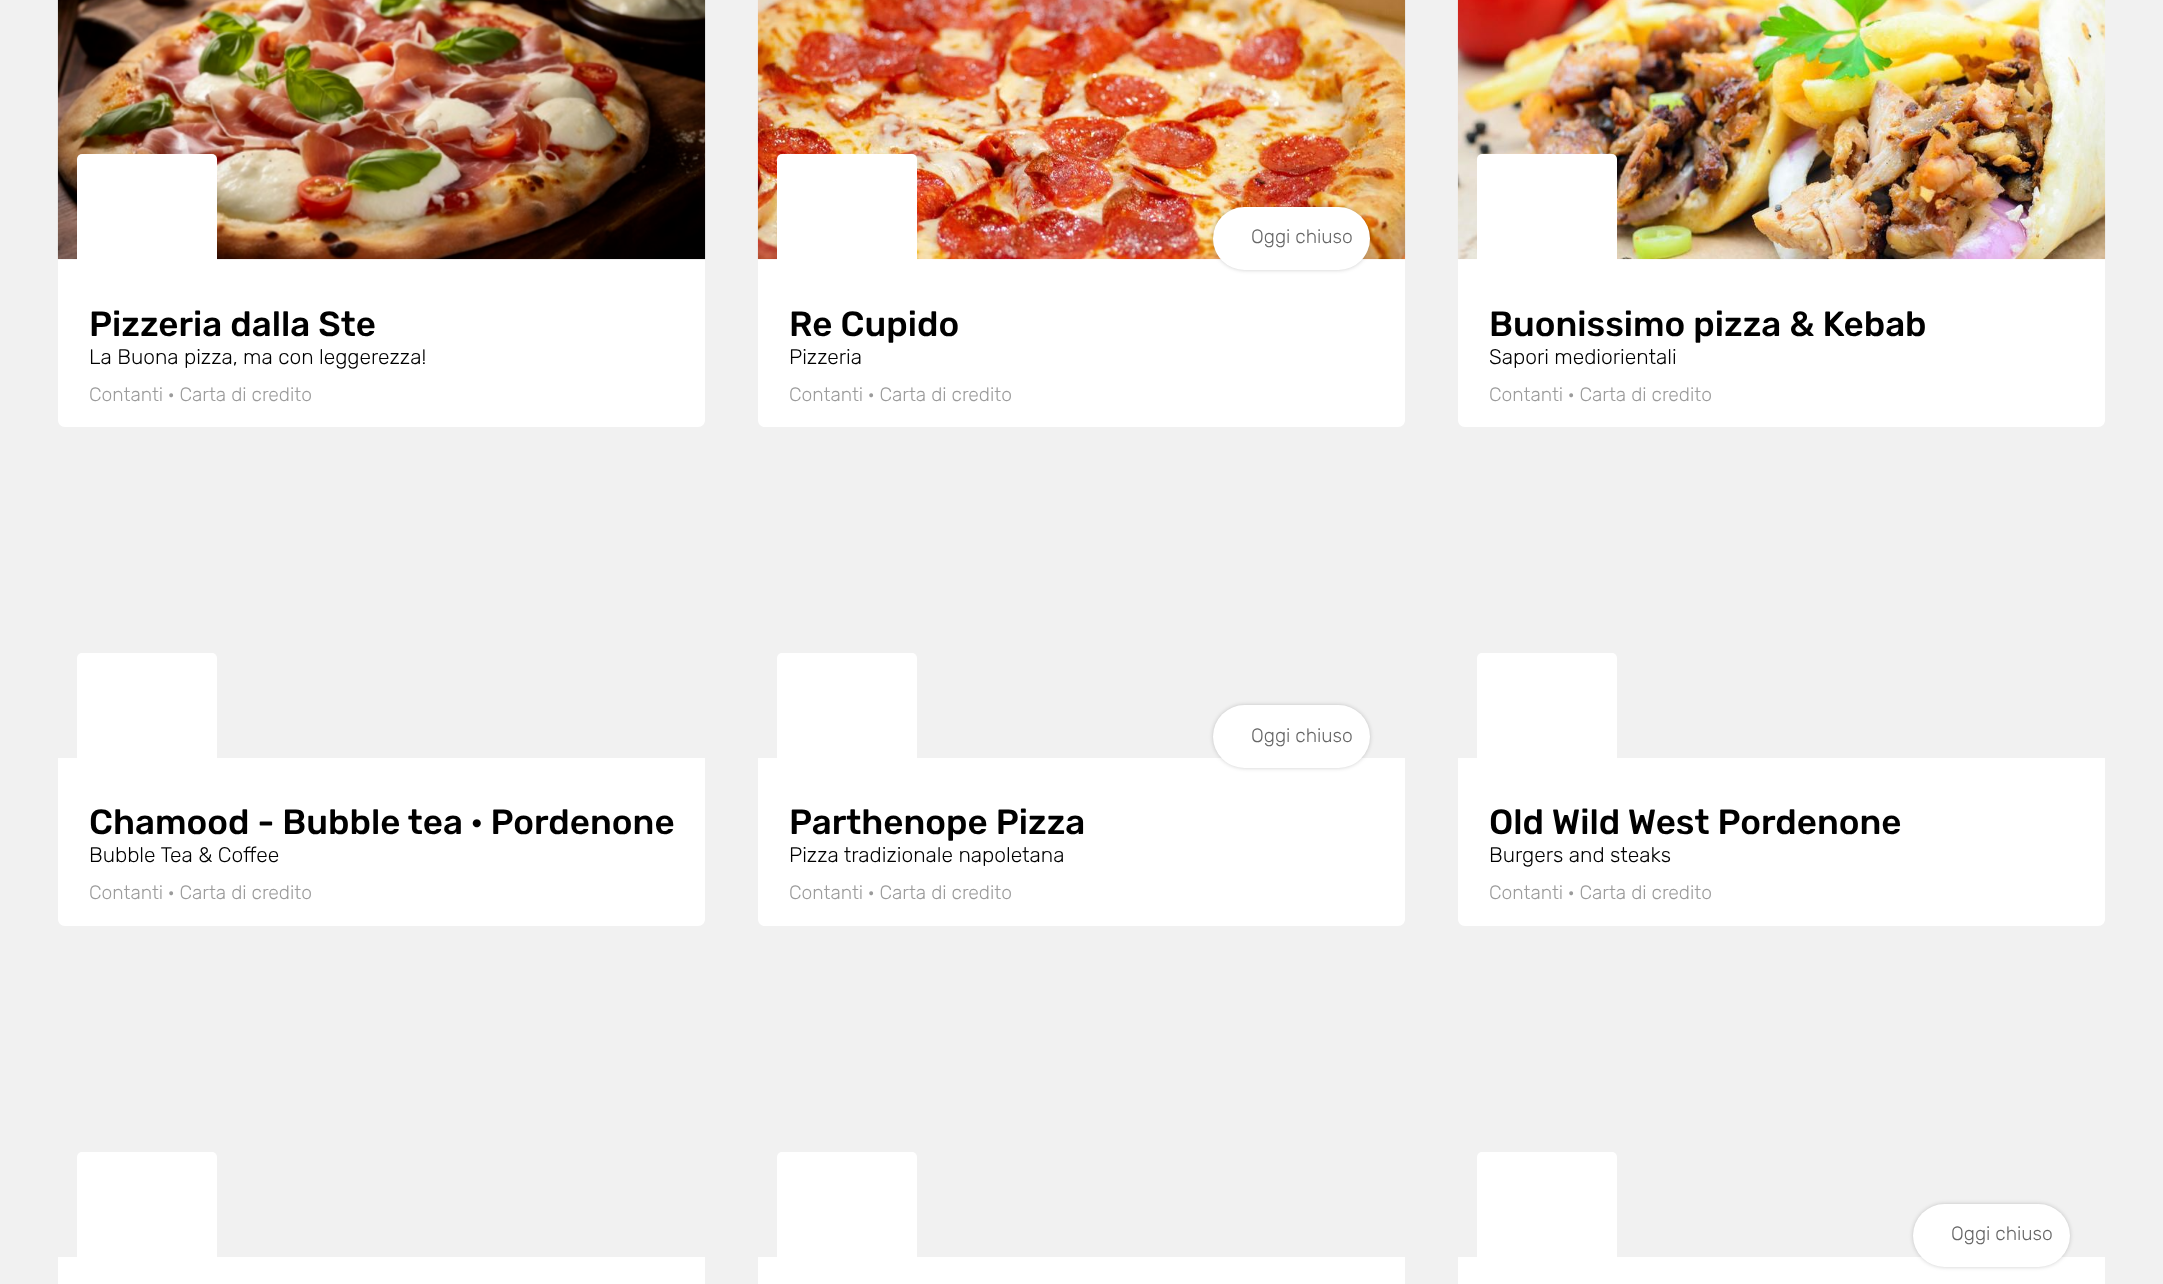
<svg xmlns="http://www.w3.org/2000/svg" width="2163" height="1284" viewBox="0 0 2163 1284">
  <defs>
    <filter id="blur1" x="-50%" y="-200%" width="200%" height="500%"><feGaussianBlur stdDeviation="2"/></filter>
  </defs>
  <rect width="100%" height="100%" fill="#f1f1f1"/>
  <path d="M58 259H705V420C705 424 702 427 698 427H65C61 427 58 424 58 420Z" fill="#ffffff"/>
  <image x="57" y="0" width="649" height="260" href="img1.png"/>
  <rect x="77" y="154" width="140" height="140" rx="5" fill="#ffffff"/>
  <text x="89" y="336" font-family="Rubik" font-size="35" font-weight="500" fill="#000000">Pizzeria dalla Ste</text>
  <text x="89" y="364" font-family="Rubik" font-size="21" font-weight="300" fill="#000000">La Buona pizza, ma con leggerezza!</text>
  <text x="89" y="401" font-family="Rubik" font-size="19.25" font-weight="300" fill="#9b9b9b">Contanti · Carta di credito</text>
  <path d="M758 259H1405V420C1405 424 1402 427 1398 427H765C761 427 758 424 758 420Z" fill="#ffffff"/>
  <image x="757" y="0" width="649" height="260" href="img2.png"/>
  <rect x="777" y="154" width="140" height="140" rx="5" fill="#ffffff"/>
  <rect x="1213" y="207" width="157" height="63" rx="31.5" fill="#000000" fill-opacity="0.2" filter="url(#blur1)"/>
  <rect x="1213" y="207" width="157" height="63" rx="31.5" fill="#ffffff"/>
  <text x="1251" y="243" font-family="Rubik" font-size="19.25" font-weight="300" fill="#666666">Oggi chiuso</text>
  <text x="789" y="336" font-family="Rubik" font-size="35" font-weight="500" fill="#000000">Re Cupido</text>
  <text x="789" y="364" font-family="Rubik" font-size="21" font-weight="300" fill="#000000">Pizzeria</text>
  <text x="789" y="401" font-family="Rubik" font-size="19.25" font-weight="300" fill="#9b9b9b">Contanti · Carta di credito</text>
  <path d="M1458 259H2105V420C2105 424 2102 427 2098 427H1465C1461 427 1458 424 1458 420Z" fill="#ffffff"/>
  <image x="1457" y="0" width="649" height="260" href="img3.png"/>
  <rect x="1477" y="154" width="140" height="140" rx="5" fill="#ffffff"/>
  <text x="1489" y="336" font-family="Rubik" font-size="35" font-weight="500" fill="#000000">Buonissimo pizza &amp; Kebab</text>
  <text x="1489" y="364" font-family="Rubik" font-size="21" font-weight="300" fill="#000000">Sapori mediorientali</text>
  <text x="1489" y="401" font-family="Rubik" font-size="19.25" font-weight="300" fill="#9b9b9b">Contanti · Carta di credito</text>
  <path d="M58 758H705V919C705 923 702 926 698 926H65C61 926 58 923 58 919Z" fill="#ffffff"/>
  <rect x="77" y="653" width="140" height="140" rx="5" fill="#ffffff"/>
  <text x="89" y="834" font-family="Rubik" font-size="35" font-weight="500" fill="#000000">Chamood - Bubble tea · Pordenone</text>
  <text x="89" y="862" font-family="Rubik" font-size="21" font-weight="300" fill="#000000">Bubble Tea &amp; Coffee</text>
  <text x="89" y="899" font-family="Rubik" font-size="19.25" font-weight="300" fill="#9b9b9b">Contanti · Carta di credito</text>
  <path d="M758 758H1405V919C1405 923 1402 926 1398 926H765C761 926 758 923 758 919Z" fill="#ffffff"/>
  <rect x="777" y="653" width="140" height="140" rx="5" fill="#ffffff"/>
  <rect x="1213" y="705" width="157" height="63" rx="31.5" fill="#000000" fill-opacity="0.2" filter="url(#blur1)"/>
  <rect x="1213" y="705" width="157" height="63" rx="31.5" fill="#ffffff"/>
  <text x="1251" y="742" font-family="Rubik" font-size="19.25" font-weight="300" fill="#666666">Oggi chiuso</text>
  <text x="789" y="834" font-family="Rubik" font-size="35" font-weight="500" fill="#000000">Parthenope Pizza</text>
  <text x="789" y="862" font-family="Rubik" font-size="21" font-weight="300" fill="#000000">Pizza tradizionale napoletana</text>
  <text x="789" y="899" font-family="Rubik" font-size="19.25" font-weight="300" fill="#9b9b9b">Contanti · Carta di credito</text>
  <path d="M1458 758H2105V919C2105 923 2102 926 2098 926H1465C1461 926 1458 923 1458 919Z" fill="#ffffff"/>
  <rect x="1477" y="653" width="140" height="140" rx="5" fill="#ffffff"/>
  <text x="1489" y="834" font-family="Rubik" font-size="35" font-weight="500" fill="#000000">Old Wild West Pordenone</text>
  <text x="1489" y="862" font-family="Rubik" font-size="21" font-weight="300" fill="#000000">Burgers and steaks</text>
  <text x="1489" y="899" font-family="Rubik" font-size="19.25" font-weight="300" fill="#9b9b9b">Contanti · Carta di credito</text>
  <rect x="58" y="1257" width="647" height="27" fill="#ffffff"/>
  <rect x="77" y="1152" width="140" height="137" rx="5" fill="#ffffff"/>
  <rect x="758" y="1257" width="647" height="27" fill="#ffffff"/>
  <rect x="777" y="1152" width="140" height="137" rx="5" fill="#ffffff"/>
  <rect x="1458" y="1257" width="647" height="27" fill="#ffffff"/>
  <rect x="1477" y="1152" width="140" height="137" rx="5" fill="#ffffff"/>
  <rect x="1913" y="1204" width="157" height="63" rx="31.5" fill="#000000" fill-opacity="0.2" filter="url(#blur1)"/>
  <rect x="1913" y="1204" width="157" height="63" rx="31.5" fill="#ffffff"/>
  <text x="1951" y="1240" font-family="Rubik" font-size="19.25" font-weight="300" fill="#666666">Oggi chiuso</text>
</svg>
